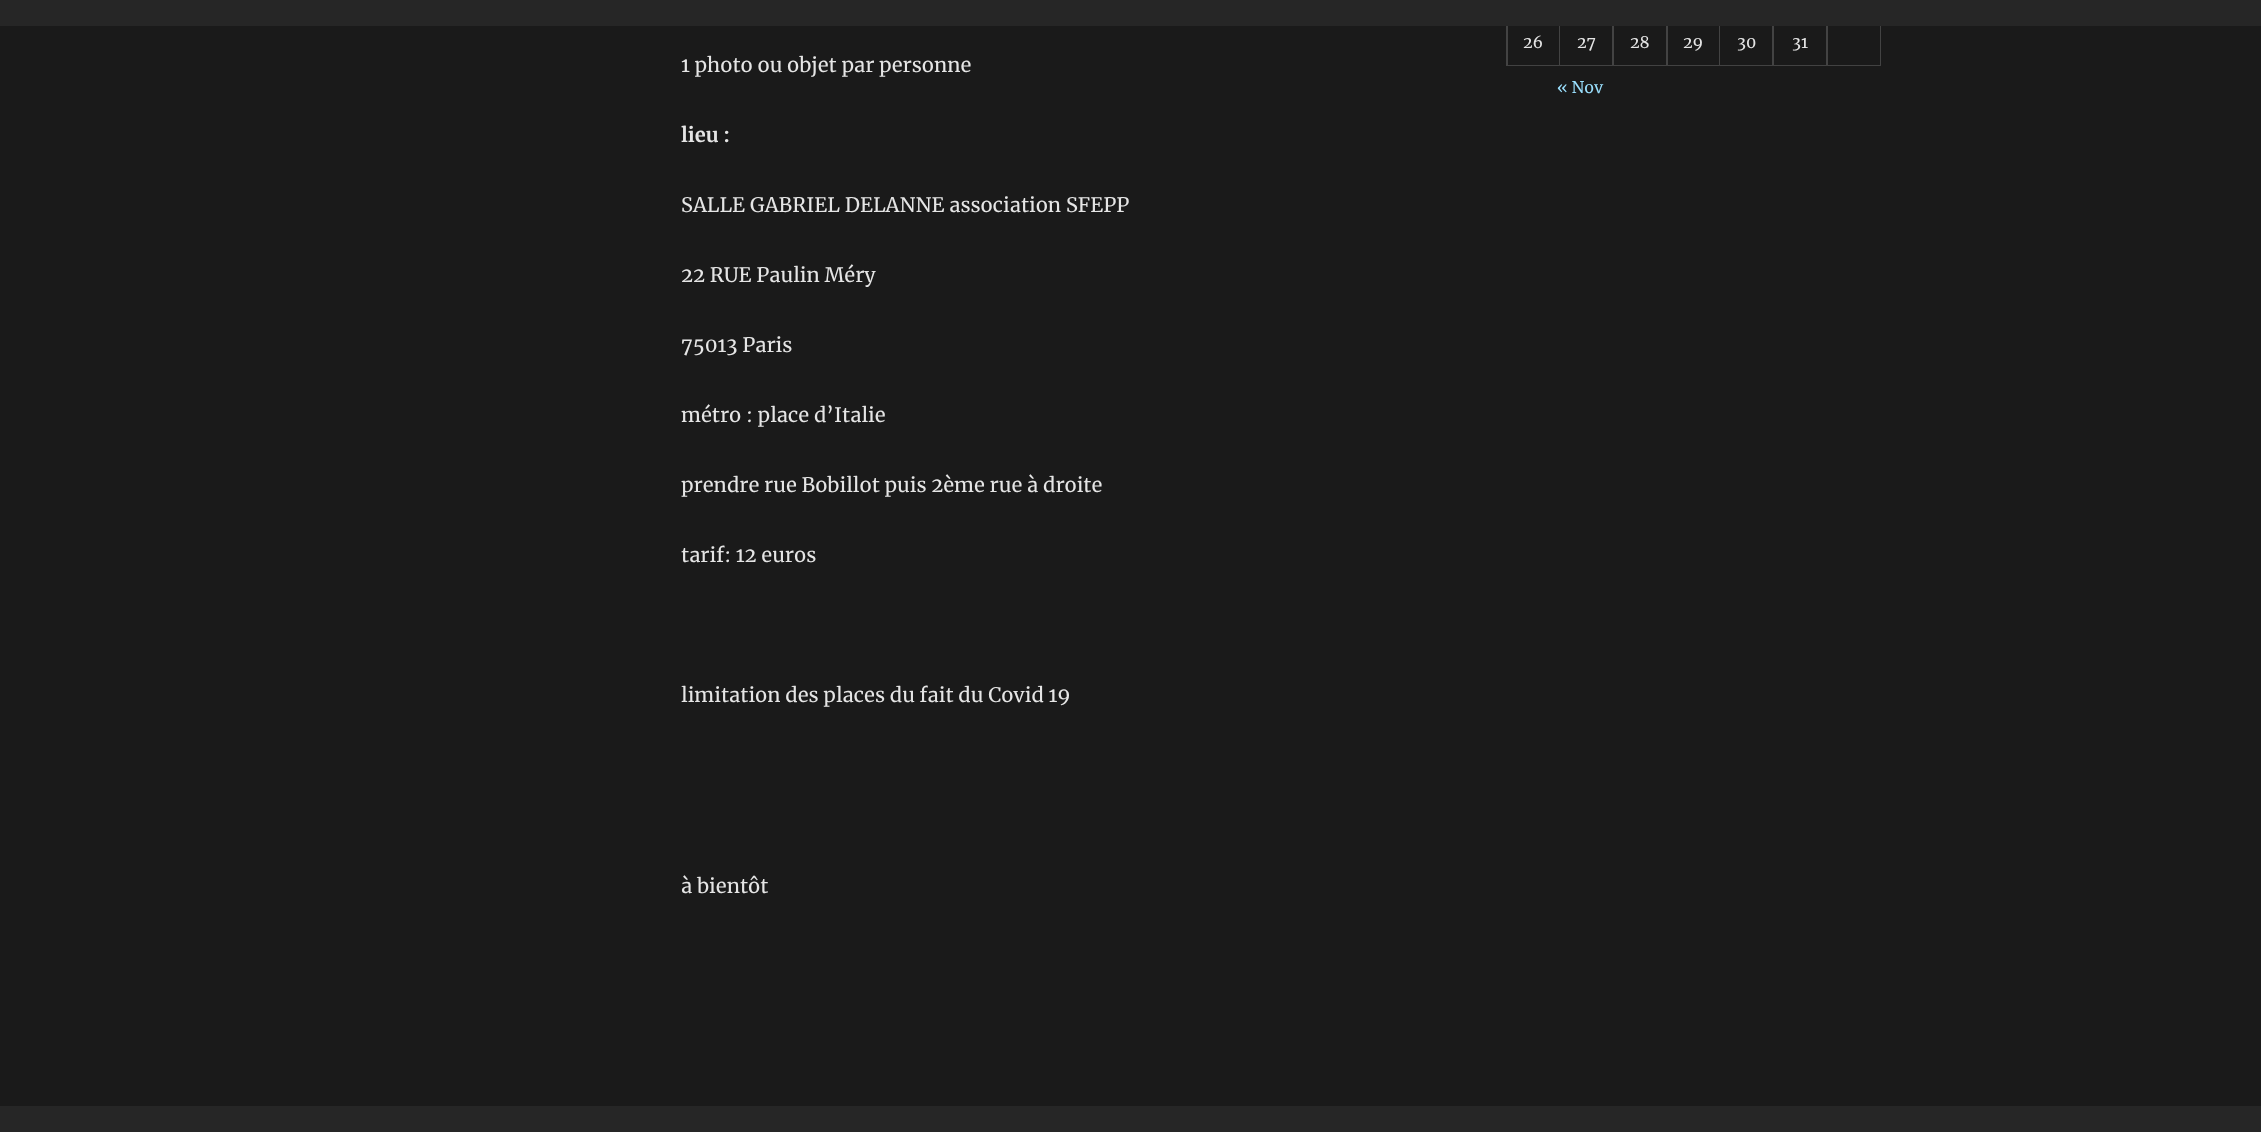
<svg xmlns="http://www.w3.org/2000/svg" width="2261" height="1132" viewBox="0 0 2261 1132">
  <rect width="100%" height="100%" fill="#1a1a1a"/>
  <path d="M1506 66V-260L1508-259V66Z" fill="#434343"/>
  <path d="M1560 21V66L1559 65V21Z" fill="#434343"/>
  <path d="M1614 21V66L1612 65V21Z" fill="#434343"/>
  <path d="M1668 21V66L1666 65V21Z" fill="#434343"/>
  <path d="M1720 21V66L1719 65V21Z" fill="#434343"/>
  <path d="M1774 21V66L1772 65V21Z" fill="#434343"/>
  <path d="M1828 21V66L1826 65V21Z" fill="#434343"/>
  <path d="M1881 21V66L1880 65V21Z" fill="#434343"/>
  <rect x="0" y="0" width="2261" height="26" fill="#262626"/>
  <text x="681" y="72" font-family="Merriweather" font-size="20" fill="#e5e5e5">1 photo ou objet par personne</text>
  <text x="681" y="142" font-family="Merriweather" font-size="20" font-weight="bold" fill="#e5e5e5">lieu :</text>
  <text x="681" y="212" font-family="Merriweather" font-size="20" fill="#e5e5e5">SALLE GABRIEL DELANNE association SFEPP</text>
  <text x="681" y="282" font-family="Merriweather" font-size="20" fill="#e5e5e5">22 RUE Paulin Méry</text>
  <text x="681" y="352" font-family="Merriweather" font-size="20" fill="#e5e5e5">75013 Paris</text>
  <text x="681" y="422" font-family="Merriweather" font-size="20" fill="#e5e5e5">métro : place d’Italie</text>
  <text x="681" y="492" font-family="Merriweather" font-size="20" fill="#e5e5e5">prendre rue Bobillot puis 2ème rue à droite</text>
  <text x="681" y="562" font-family="Merriweather" font-size="20" fill="#e5e5e5">tarif: 12 euros</text>
  <text x="681" y="702" font-family="Merriweather" font-size="20" fill="#e5e5e5">limitation des places du fait du Covid 19</text>
  <text x="681" y="893" font-family="Merriweather" font-size="20" fill="#e5e5e5">à bientôt</text>
  <path d="M1560 66H1508V65H1559Z" fill="#e5e5e5" fill-opacity="0.2"/>
  <text x="1523" y="48" font-family="Merriweather" font-size="16" fill="#e5e5e5">26</text>
  <path d="M1614 66H1560V65H1612Z" fill="#e5e5e5" fill-opacity="0.2"/>
  <text x="1577" y="48" font-family="Merriweather" font-size="16" fill="#e5e5e5">27</text>
  <path d="M1668 66H1614V65H1666Z" fill="#e5e5e5" fill-opacity="0.2"/>
  <text x="1630" y="48" font-family="Merriweather" font-size="16" fill="#e5e5e5">28</text>
  <path d="M1720 66H1668V65H1719Z" fill="#e5e5e5" fill-opacity="0.2"/>
  <text x="1683" y="48" font-family="Merriweather" font-size="16" fill="#e5e5e5">29</text>
  <path d="M1774 66H1720V65H1772Z" fill="#e5e5e5" fill-opacity="0.2"/>
  <text x="1737" y="48" font-family="Merriweather" font-size="16" fill="#e5e5e5">30</text>
  <path d="M1828 66H1774V65H1826Z" fill="#e5e5e5" fill-opacity="0.2"/>
  <text x="1792" y="48" font-family="Merriweather" font-size="16" fill="#e5e5e5">31</text>
  <path d="M1881 66H1828V65H1880Z" fill="#e5e5e5" fill-opacity="0.2"/>
  <text x="1557" y="93" font-family="Merriweather" font-size="16" fill="#9adffd">« Nov</text>
  <rect x="0" y="1106" width="2261" height="26" fill="#262626"/>
</svg>
